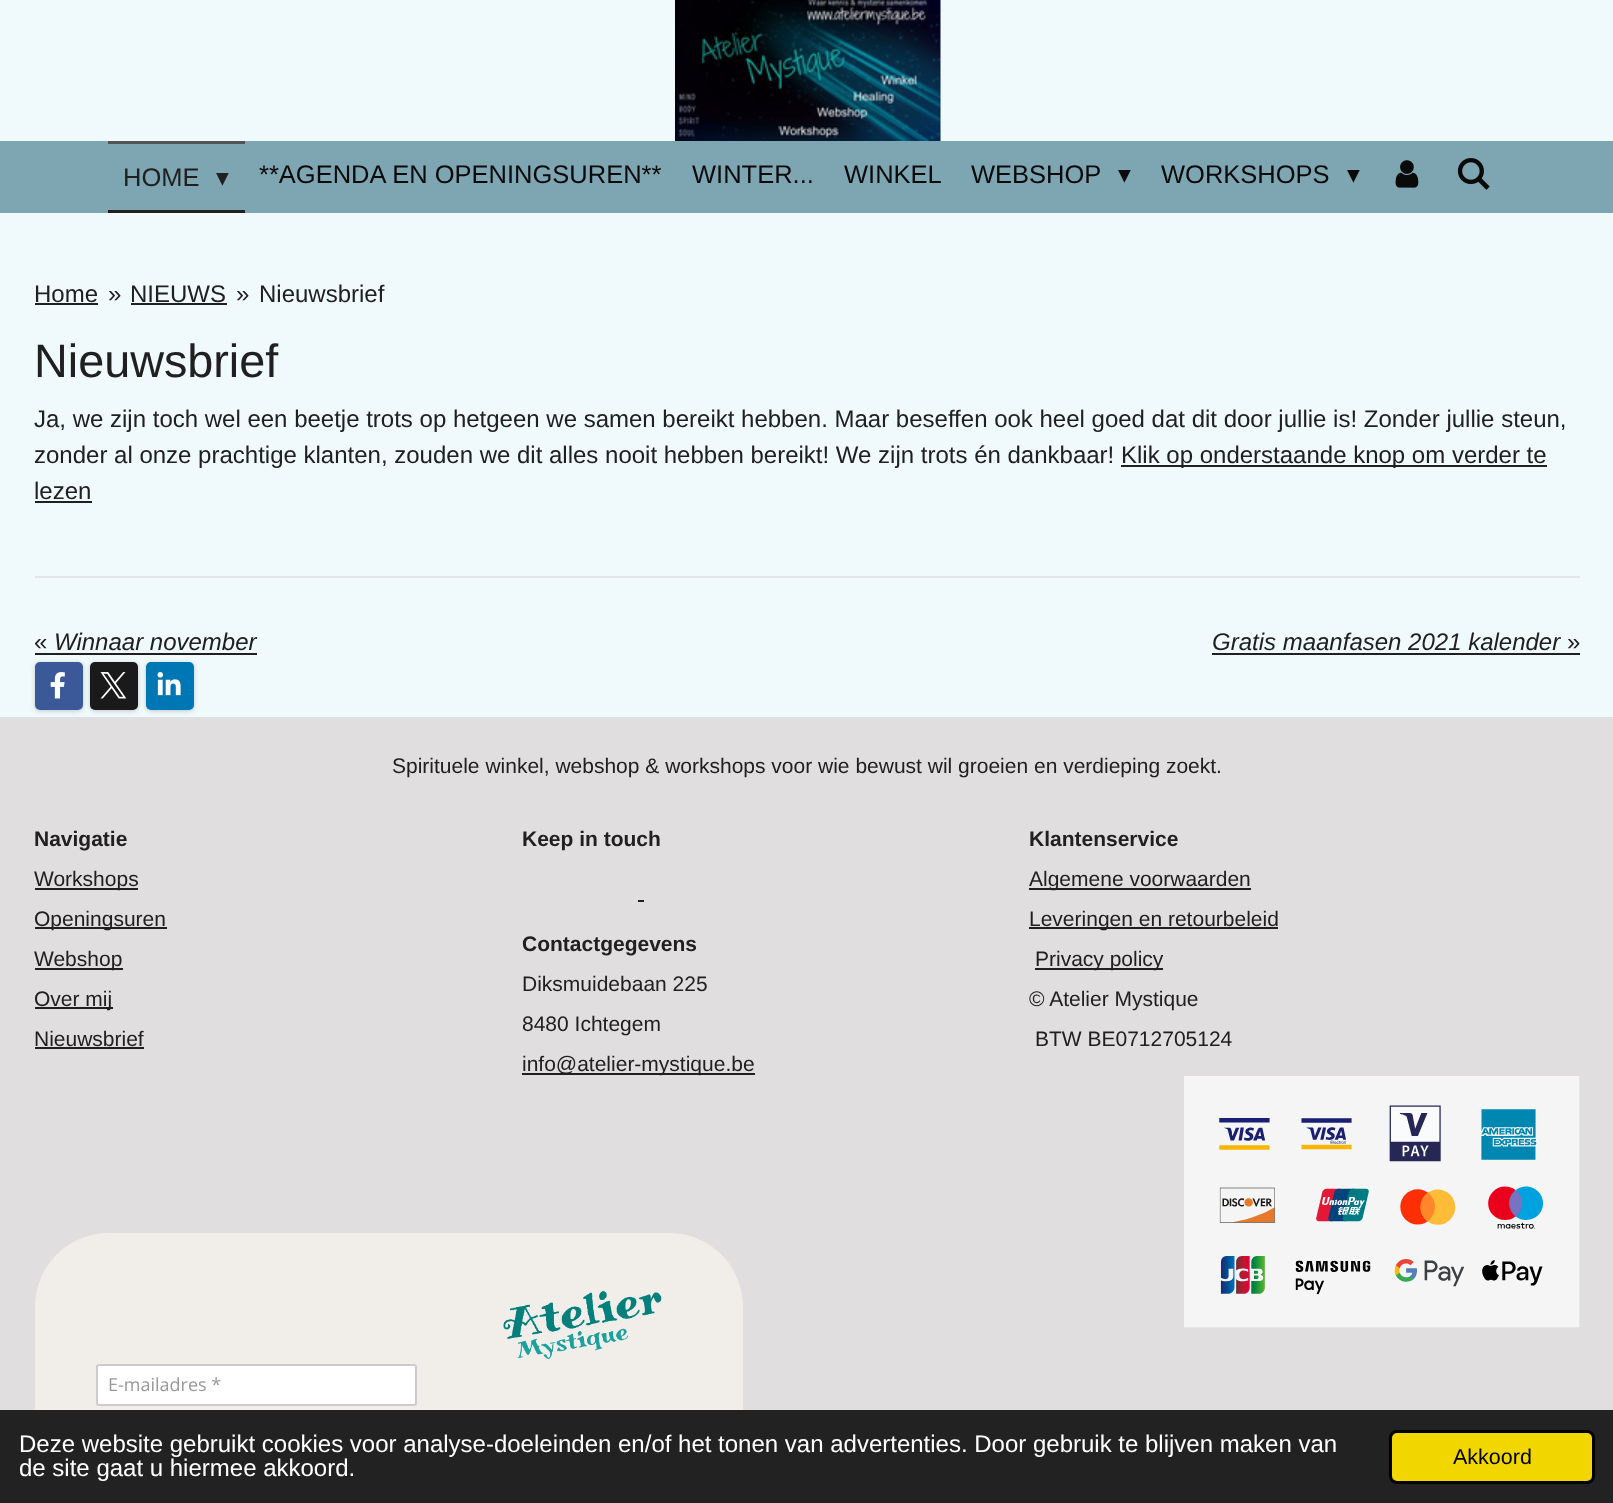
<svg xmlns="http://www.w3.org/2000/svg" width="1613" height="1503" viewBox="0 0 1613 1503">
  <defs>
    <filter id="blur1" x="-50%" y="-200%" width="200%" height="500%"><feGaussianBlur stdDeviation="2"/></filter>
  </defs>
  <rect width="100%" height="100%" fill="#f0f9fc"/>
  <image x="675" y="0" width="266" height="141" href="img1.png"/>
  <rect x="0" y="141" width="1613" height="72" fill="#7ea5b2"/>
  <rect x="108" y="141" width="137" height="3" fill="#535353"/>
  <rect x="108" y="210" width="137" height="3" fill="#202020"/>
  <text x="123" y="186" font-family="Liberation Sans" font-size="25.5" fill="#202020">HOME</text>
  <text x="216" y="186" font-family="DejaVu Sans" font-size="25.5" fill="#202020">▾</text>
  <text x="259" y="183" font-family="Liberation Sans" font-size="25.5" fill="#0b0a0a">**AGENDA EN OPENINGSUREN**</text>
  <text x="692" y="183" font-family="Liberation Sans" font-size="25.5" fill="#0b0a0a">WINTER...</text>
  <text x="844" y="183" font-family="Liberation Sans" font-size="25.5" fill="#0b0a0a">WINKEL</text>
  <text x="971" y="183" font-family="Liberation Sans" font-size="25.5" fill="#0b0a0a">WEBSHOP</text>
  <text x="1118" y="183" font-family="DejaVu Sans" font-size="25.5" fill="#0b0a0a">▾</text>
  <text x="1161" y="183" font-family="Liberation Sans" font-size="25.5" fill="#0b0a0a">WORKSHOPS</text>
  <text x="1347" y="183" font-family="DejaVu Sans" font-size="25.5" fill="#0b0a0a">▾</text>
  <image x="1395" y="160" width="24" height="28" href="img2.png"/>
  <image x="1457" y="158" width="33" height="32" href="img3.png"/>
  <text x="34" y="302" font-family="Liberation Sans" font-size="24" fill="#202020">Home</text>
  <rect x="35" y="303" width="63" height="2" fill="#202020"/>
  <text x="108" y="302" font-family="Liberation Sans" font-size="24" fill="#202020">»</text>
  <text x="130" y="302" font-family="Liberation Sans" font-size="24" fill="#202020">NIEUWS</text>
  <rect x="131" y="303" width="96" height="2" fill="#202020"/>
  <text x="236" y="302" font-family="Liberation Sans" font-size="24" fill="#202020">»</text>
  <text x="259" y="302" font-family="Liberation Sans" font-size="24" fill="#202020">Nieuwsbrief</text>
  <text x="34" y="377" font-family="Liberation Sans" font-size="46.75" fill="#202020">Nieuwsbrief</text>
  <text x="34" y="427" font-family="Liberation Sans" font-size="24" fill="#202020">Ja, we zijn toch wel een beetje trots op hetgeen we samen bereikt hebben. Maar beseffen ook heel goed dat dit door jullie is! Zonder jullie steun,</text>
  <text x="34" y="463" font-family="Liberation Sans" font-size="24" fill="#202020">zonder al onze prachtige klanten, zouden we dit alles nooit hebben bereikt! We zijn trots én dankbaar!</text>
  <rect x="1121" y="465" width="426" height="2" fill="#202020"/>
  <text x="1121" y="463" font-family="Liberation Sans" font-size="24" fill="#202020">Klik op onderstaande knop om verder te</text>
  <text x="34" y="499" font-family="Liberation Sans" font-size="24" fill="#202020">lezen</text>
  <rect x="35" y="501" width="57" height="2" fill="#202020"/>
  <rect x="35" y="576" width="1545" height="2" fill="#dfe7ea"/>
  <text x="34" y="650" font-family="Liberation Sans" font-size="24" fill="#202020">«</text>
  <rect x="35" y="653" width="222" height="2" fill="#202020"/>
  <text x="54" y="650" font-family="Liberation Sans" font-size="24" font-style="italic" fill="#202020">Winnaar november</text>
  <text x="1212" y="650" font-family="Liberation Sans" font-size="24" font-style="italic" fill="#202020">Gratis maanfasen 2021 kalender</text>
  <text x="1567" y="650" font-family="Liberation Sans" font-size="24" fill="#202020">»</text>
  <rect x="1212" y="653" width="368" height="2" fill="#202020"/>
  <rect x="35" y="663" width="48" height="48" rx="5" fill="#000000" fill-opacity="0.2" filter="url(#blur1)"/>
  <rect x="35" y="662" width="48" height="48" rx="5" fill="#3b5998"/>
  <image x="50" y="672" width="15" height="27" href="img4.png"/>
  <rect x="90" y="663" width="48" height="48" rx="5" fill="#000000" fill-opacity="0.2" filter="url(#blur1)"/>
  <rect x="90" y="662" width="48" height="48" rx="5" fill="#1a1a1a"/>
  <image x="100" y="672" width="27" height="27" href="img5.png"/>
  <rect x="146" y="663" width="48" height="48" rx="5" fill="#000000" fill-opacity="0.2" filter="url(#blur1)"/>
  <rect x="146" y="662" width="48" height="48" rx="5" fill="#0077b5"/>
  <image x="157" y="672" width="24" height="24" href="img6.png"/>
  <rect x="0" y="717" width="1613" height="693" fill="#e0dede"/>
  <text x="392" y="773" font-family="Liberation Sans" font-size="21" fill="#202020">Spirituele winkel, webshop &amp; workshops voor wie bewust wil groeien en verdieping zoekt.</text>
  <text x="34" y="846" font-family="Liberation Sans" font-size="21" font-weight="bold" fill="#202020">Navigatie</text>
  <rect x="35" y="888" width="103" height="2" fill="#202020"/>
  <text x="34" y="886" font-family="Liberation Sans" font-size="21" fill="#202020">Workshops</text>
  <rect x="35" y="927" width="132" height="2" fill="#202020"/>
  <text x="34" y="926" font-family="Liberation Sans" font-size="21" fill="#202020">Openingsuren</text>
  <rect x="35" y="968" width="88" height="2" fill="#202020"/>
  <text x="34" y="966" font-family="Liberation Sans" font-size="21" fill="#202020">Webshop</text>
  <rect x="35" y="1007" width="78" height="2" fill="#202020"/>
  <text x="34" y="1006" font-family="Liberation Sans" font-size="21" fill="#202020">Over mij</text>
  <text x="34" y="1046" font-family="Liberation Sans" font-size="21" fill="#202020">Nieuwsbrief</text>
  <rect x="35" y="1047" width="109" height="2" fill="#202020"/>
  <path d="M109 1233H420V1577H109C68 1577 35 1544 35 1503V1307C35 1266 68 1233 109 1233Z" fill="#f1eee9"/>
  <rect x="97" y="1365" width="319" height="40" rx="2" fill="#ffffff" stroke="#cccccc" stroke-width="2"/>
  <text x="108" y="1391" font-family="Open Sans" font-size="18" fill="#999999">E-mailadres *</text>
  <path d="M420 1233H669C710 1233 743 1266 743 1307V1367H420Z" fill="#f1eee9"/>
  <image x="503" y="1290" width="159" height="70" href="img7.png"/>
  <rect x="420" y="1367" width="323" height="43" fill="#f1eee9"/>
  <text x="522" y="846" font-family="Liberation Sans" font-size="21" font-weight="bold" fill="#202020">Keep in touch</text>
  <rect x="638" y="900" width="6" height="2" fill="#202020"/>
  <text x="522" y="951" font-family="Liberation Sans" font-size="21" font-weight="bold" fill="#202020">Contactgegevens</text>
  <text x="522" y="991" font-family="Liberation Sans" font-size="21" fill="#202020">Diksmuidebaan 225</text>
  <text x="522" y="1031" font-family="Liberation Sans" font-size="21" fill="#202020">8480 Ichtegem</text>
  <rect x="522" y="1073" width="233" height="2" fill="#202020"/>
  <text x="522" y="1071" font-family="Liberation Sans" font-size="21" fill="#202020">info@atelier-mystique.be</text>
  <text x="1029" y="846" font-family="Liberation Sans" font-size="21" font-weight="bold" fill="#202020">Klantenservice</text>
  <rect x="1029" y="888" width="222" height="2" fill="#202020"/>
  <text x="1029" y="886" font-family="Liberation Sans" font-size="21" fill="#202020">Algemene voorwaarden</text>
  <rect x="1029" y="927" width="249" height="2" fill="#202020"/>
  <text x="1029" y="926" font-family="Liberation Sans" font-size="21" fill="#202020">Leveringen en retourbeleid</text>
  <rect x="1035" y="968" width="128" height="2" fill="#202020"/>
  <text x="1035" y="966" font-family="Liberation Sans" font-size="21" fill="#202020">Privacy policy</text>
  <text x="1029" y="1006" font-family="Liberation Sans" font-size="21" fill="#202020">© Atelier Mystique</text>
  <text x="1035" y="1046" font-family="Liberation Sans" font-size="21" fill="#202020">BTW BE0712705124</text>
  <image x="1184" y="1076" width="396" height="252" href="img8.png"/>
  <rect x="0" y="1410" width="1613" height="93" fill="#222222"/>
  <text x="19" y="1452" font-family="Liberation Sans" font-size="24" fill="#ffffff">Deze website gebruikt cookies voor analyse-doeleinden en/of het tonen van advertenties. Door gebruik te blijven maken van</text>
  <text x="19" y="1476" font-family="Liberation Sans" font-size="24" fill="#ffffff">de site gaat u hiermee akkoord.</text>
  <rect x="1390.5" y="1431.5" width="203" height="51" rx="6.5" fill="#f1d600" stroke="#000000" stroke-width="3"/>
  <text x="1453" y="1464" font-family="Liberation Sans" font-size="21.5" fill="#000000">Akkoord</text>
</svg>
